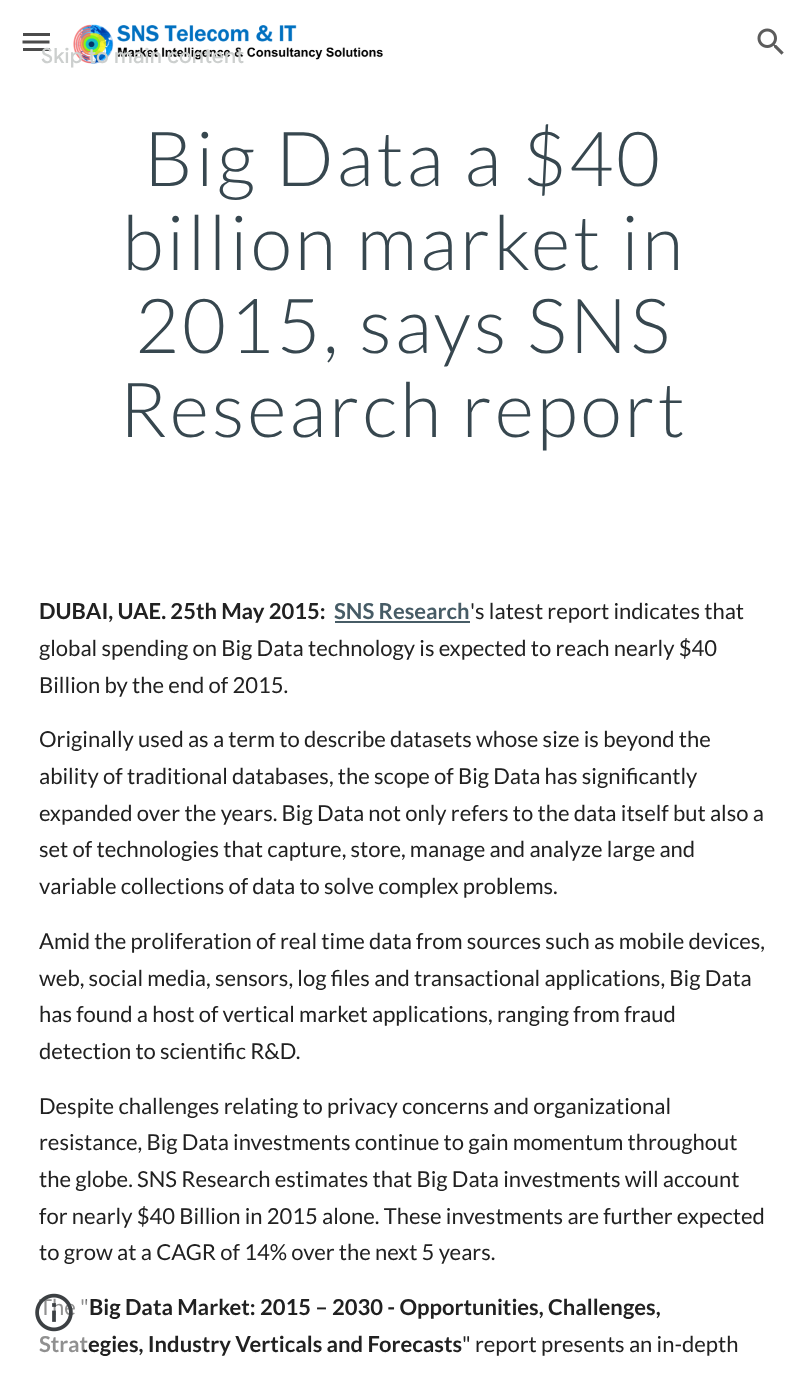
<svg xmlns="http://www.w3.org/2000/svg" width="806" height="1383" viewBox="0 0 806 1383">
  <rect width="100%" height="100%" fill="#ffffff"/>
  <rect x="23" y="48" width="27" height="3" fill="#4b4b4b"/>
  <image x="73" y="24" width="310" height="40" href="img1.png"/>
  <text x="41" y="63" font-family="Google Sans" font-size="21" font-weight="500" letter-spacing="0.25" fill="#cccfce">Skip to main content</text>
  <rect x="23" y="33" width="27" height="3" fill="#4b4b4b"/>
  <path d="M22.5 42H49.5" fill="none" stroke="#4b4b4b" stroke-width="3"/>
  <image x="757" y="28" width="27" height="27" href="img2.png"/>
  <text x="144" y="186" font-family="Lato" font-size="76" font-weight="300" letter-spacing="3" fill="#37474f">Big Data a $40</text>
  <text x="122" y="270" font-family="Lato" font-size="76" font-weight="300" letter-spacing="3" fill="#37474f">billion market in</text>
  <text x="135" y="353" font-family="Lato" font-size="76" font-weight="300" letter-spacing="3" fill="#37474f">2015, says SNS</text>
  <text x="119" y="437" font-family="Lato" font-size="76" font-weight="300" letter-spacing="3" fill="#37474f">Research report</text>
  <text x="39" y="619" font-family="Lato" font-size="22" font-weight="bold" fill="#212121">DUBAI, UAE. 25th May 2015:</text>
  <text x="334" y="619" font-family="Lato" font-size="22" font-weight="bold" fill="#475c66">SNS Research</text>
  <rect x="335" y="621" width="135" height="2" fill="#475c66"/>
  <text x="470" y="619" font-family="Lato" font-size="22" fill="#212121">'s latest report indicates that</text>
  <text x="39" y="656" font-family="Lato" font-size="22" fill="#212121">global spending on Big Data technology is expected to reach nearly $40</text>
  <text x="39" y="693" font-family="Lato" font-size="22" fill="#212121">Billion by the end of 2015.</text>
  <text x="39" y="747" font-family="Lato" font-size="22" fill="#212121">Originally used as a term to describe datasets whose size is beyond the</text>
  <text x="39" y="784" font-family="Lato" font-size="22" fill="#212121">ability of traditional databases, the scope of Big Data has significantly</text>
  <text x="39" y="821" font-family="Lato" font-size="22" fill="#212121">expanded over the years. Big Data not only refers to the data itself but also a</text>
  <text x="39" y="857" font-family="Lato" font-size="22" fill="#212121">set of technologies that capture, store, manage and analyze large and</text>
  <text x="39" y="894" font-family="Lato" font-size="22" fill="#212121">variable collections of data to solve complex problems.</text>
  <text x="39" y="949" font-family="Lato" font-size="22" fill="#212121">Amid the proliferation of real time data from sources such as mobile devices,</text>
  <text x="39" y="986" font-family="Lato" font-size="22" fill="#212121">web, social media, sensors, log files and transactional applications, Big Data</text>
  <text x="39" y="1022" font-family="Lato" font-size="22" fill="#212121">has found a host of vertical market applications, ranging from fraud</text>
  <text x="39" y="1059" font-family="Lato" font-size="22" fill="#212121">detection to scientific R&amp;D.</text>
  <text x="39" y="1114" font-family="Lato" font-size="22" fill="#212121">Despite challenges relating to privacy concerns and organizational</text>
  <text x="39" y="1150" font-family="Lato" font-size="22" fill="#212121">resistance, Big Data investments continue to gain momentum throughout</text>
  <text x="39" y="1187" font-family="Lato" font-size="22" fill="#212121">the globe. SNS Research estimates that Big Data investments will account</text>
  <text x="39" y="1224" font-family="Lato" font-size="22" fill="#212121">for nearly $40 Billion in 2015 alone. These investments are further expected</text>
  <text x="39" y="1260" font-family="Lato" font-size="22" fill="#212121">to grow at a CAGR of 14% over the next 5 years.</text>
  <text x="39" y="1315" font-family="Lato" font-size="22" fill="#212121">The "</text>
  <text x="89" y="1315" font-family="Lato" font-size="22" font-weight="bold" fill="#212121">Big Data Market: 2015 – 2030 - Opportunities, Challenges,</text>
  <text x="39" y="1352" font-family="Lato" font-size="22" font-weight="bold" fill="#212121">Strategies, Industry Verticals and Forecasts</text>
  <text x="462" y="1352" font-family="Lato" font-size="22" fill="#212121">" report presents an in-depth</text>
  <rect x="18" y="1287" width="72" height="72" rx="26" fill="#ffffff" fill-opacity="0.5"/>
  <image x="35" y="1293" width="38" height="39" href="img3.png"/>
</svg>
